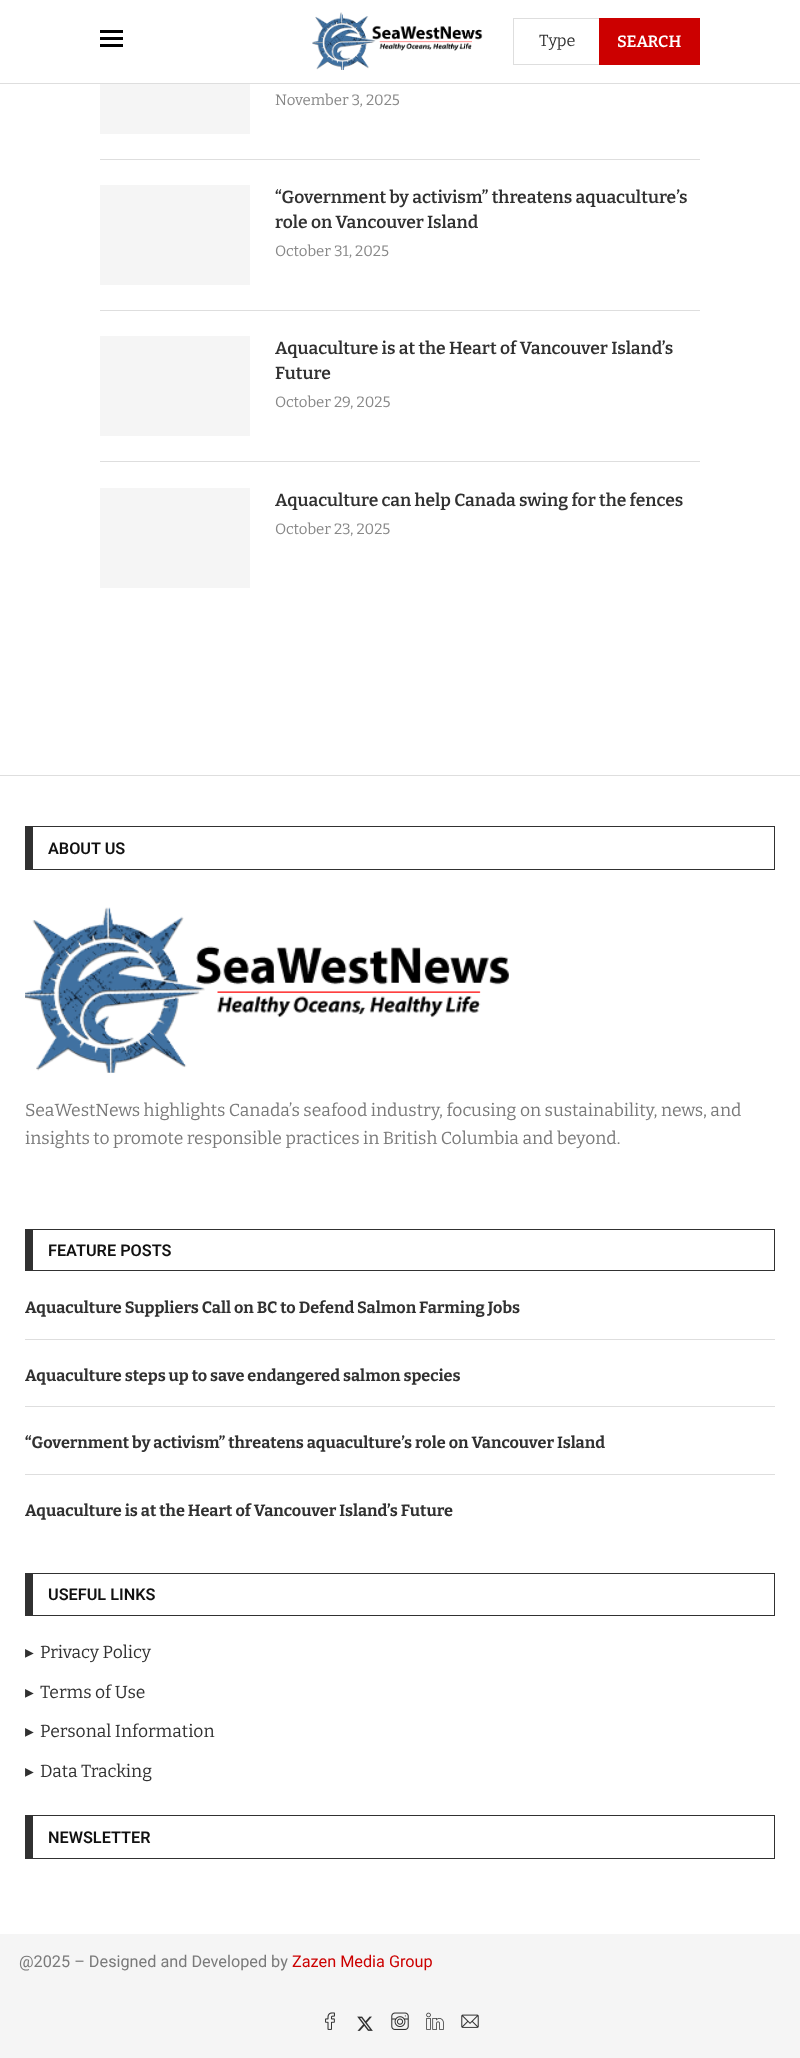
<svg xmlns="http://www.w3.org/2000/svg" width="800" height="2058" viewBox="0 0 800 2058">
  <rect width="100%" height="100%" fill="#ffffff"/>
  <rect x="0" y="83" width="800" height="1" fill="#dedede"/>
  <rect x="100" y="30" width="23" height="3" fill="#000000"/>
  <rect x="100" y="37" width="23" height="3" fill="#000000"/>
  <rect x="100" y="44" width="23" height="3" fill="#000000"/>
  <image x="312" y="12" width="171" height="58" href="img1.png"/>
  <rect x="513" y="18" width="86" height="1" fill="#dedede"/>
  <rect x="513" y="64" width="86" height="1" fill="#dedede"/>
  <rect x="513" y="18" width="1" height="47" fill="#dedede"/>
  <text x="539" y="46" font-family="Bitter" font-size="16.25" fill="#313131">Type</text>
  <rect x="599" y="18" width="101" height="47" fill="#cc0000"/>
  <text x="617" y="47" font-family="Bitter" font-size="16.25" font-weight="600" fill="#ffffff">SEARCH</text>
  <rect x="100" y="159" width="600" height="1" fill="#dedede"/>
  <rect x="100" y="84" width="150" height="50" fill="#f5f5f5"/>
  <text x="275" y="105" font-family="Bitter" font-size="15" fill="#888888">November 3, 2025</text>
  <rect x="100" y="310" width="600" height="1" fill="#dedede"/>
  <rect x="100" y="185" width="150" height="100" fill="#f5f5f5"/>
  <text x="275" y="203" font-family="Bitter" font-size="17.5" font-weight="600" fill="#313131">“Government by activism” threatens aquaculture’s</text>
  <text x="275" y="228" font-family="Bitter" font-size="17.5" font-weight="600" fill="#313131">role on Vancouver Island</text>
  <text x="275" y="256" font-family="Bitter" font-size="15" fill="#888888">October 31, 2025</text>
  <rect x="100" y="461" width="600" height="1" fill="#dedede"/>
  <rect x="100" y="336" width="150" height="100" fill="#f5f5f5"/>
  <text x="275" y="354" font-family="Bitter" font-size="17.5" font-weight="600" fill="#313131">Aquaculture is at the Heart of Vancouver Island’s</text>
  <text x="275" y="379" font-family="Bitter" font-size="17.5" font-weight="600" fill="#313131">Future</text>
  <text x="275" y="407" font-family="Bitter" font-size="15" fill="#888888">October 29, 2025</text>
  <rect x="100" y="488" width="150" height="100" fill="#f5f5f5"/>
  <text x="275" y="506" font-family="Bitter" font-size="17.5" font-weight="600" fill="#313131">Aquaculture can help Canada swing for the fences</text>
  <text x="275" y="534" font-family="Bitter" font-size="15" fill="#888888">October 23, 2025</text>
  <rect x="0" y="775" width="800" height="1" fill="#dedede"/>
  <rect x="25" y="826" width="750" height="1" fill="#313131"/>
  <rect x="774" y="826" width="1" height="44" fill="#313131"/>
  <rect x="25" y="869" width="750" height="1" fill="#313131"/>
  <rect x="25" y="826" width="8" height="44" fill="#313131"/>
  <text x="48" y="854" font-family="Roboto" font-size="16.25" font-weight="600" fill="#111111">ABOUT US</text>
  <image x="25" y="907" width="484" height="166" href="img2.png"/>
  <text x="25" y="1116" font-family="Bitter" font-size="17.5" fill="#7a7a7a">SeaWestNews highlights Canada’s seafood industry, focusing on sustainability, news, and</text>
  <text x="25" y="1144" font-family="Bitter" font-size="17.5" fill="#7a7a7a">insights to promote responsible practices in British Columbia and beyond.</text>
  <rect x="25" y="1229" width="750" height="1" fill="#313131"/>
  <rect x="774" y="1229" width="1" height="42" fill="#313131"/>
  <rect x="25" y="1270" width="750" height="1" fill="#313131"/>
  <rect x="25" y="1229" width="8" height="42" fill="#313131"/>
  <text x="48" y="1256" font-family="Roboto" font-size="16.25" font-weight="600" fill="#111111">FEATURE POSTS</text>
  <rect x="25" y="1339" width="750" height="1" fill="#dedede"/>
  <text x="25" y="1313" font-family="Bitter" font-size="16.25" font-weight="bold" fill="#313131">Aquaculture Suppliers Call on BC to Defend Salmon Farming Jobs</text>
  <rect x="25" y="1406" width="750" height="1" fill="#dedede"/>
  <text x="25" y="1381" font-family="Bitter" font-size="16.25" font-weight="bold" fill="#313131">Aquaculture steps up to save endangered salmon species</text>
  <rect x="25" y="1474" width="750" height="1" fill="#dedede"/>
  <text x="25" y="1448" font-family="Bitter" font-size="16.25" font-weight="bold" fill="#313131">“Government by activism” threatens aquaculture’s role on Vancouver Island</text>
  <text x="25" y="1516" font-family="Bitter" font-size="16.25" font-weight="bold" fill="#313131">Aquaculture is at the Heart of Vancouver Island’s Future</text>
  <rect x="25" y="1573" width="750" height="1" fill="#313131"/>
  <rect x="774" y="1573" width="1" height="43" fill="#313131"/>
  <rect x="25" y="1615" width="750" height="1" fill="#313131"/>
  <rect x="25" y="1573" width="8" height="43" fill="#313131"/>
  <text x="48" y="1600" font-family="Roboto" font-size="16.25" font-weight="600" fill="#111111">USEFUL LINKS</text>
  <text x="25" y="1658" font-family="DejaVu Sans" font-size="17.5" fill="#313131">▸</text>
  <text x="40" y="1658" font-family="Bitter" font-size="17.5" fill="#313131">Privacy Policy</text>
  <text x="25" y="1698" font-family="DejaVu Sans" font-size="17.5" fill="#313131">▸</text>
  <text x="40" y="1698" font-family="Bitter" font-size="17.5" fill="#313131">Terms of Use</text>
  <text x="25" y="1737" font-family="DejaVu Sans" font-size="17.5" fill="#313131">▸</text>
  <text x="40" y="1737" font-family="Bitter" font-size="17.5" fill="#313131">Personal Information</text>
  <text x="25" y="1777" font-family="DejaVu Sans" font-size="17.5" fill="#313131">▸</text>
  <text x="40" y="1777" font-family="Bitter" font-size="17.5" fill="#313131">Data Tracking</text>
  <rect x="25" y="1815" width="750" height="1" fill="#313131"/>
  <rect x="774" y="1815" width="1" height="44" fill="#313131"/>
  <rect x="25" y="1858" width="750" height="1" fill="#313131"/>
  <rect x="25" y="1815" width="8" height="44" fill="#313131"/>
  <text x="48" y="1843" font-family="Roboto" font-size="16.25" font-weight="600" fill="#111111">NEWSLETTER</text>
  <rect x="0" y="1934" width="800" height="124" fill="#f5f5f5"/>
  <text x="19" y="1967" font-family="Roboto" font-size="16.25" fill="#7a7a7a">@2025 – Designed and Developed by</text>
  <text x="292" y="1967" font-family="Roboto" font-size="16.25" fill="#cc0000">Zazen Media Group</text>
  <image x="325" y="2012" width="10" height="18" href="img3.png"/>
  <image x="357" y="2016" width="16" height="15" href="img4.png"/>
  <image x="391" y="2012" width="18" height="18" href="img5.png"/>
  <image x="426" y="2012" width="18" height="18" href="img6.png"/>
  <image x="461" y="2014" width="18" height="14" href="img7.png"/>
</svg>
